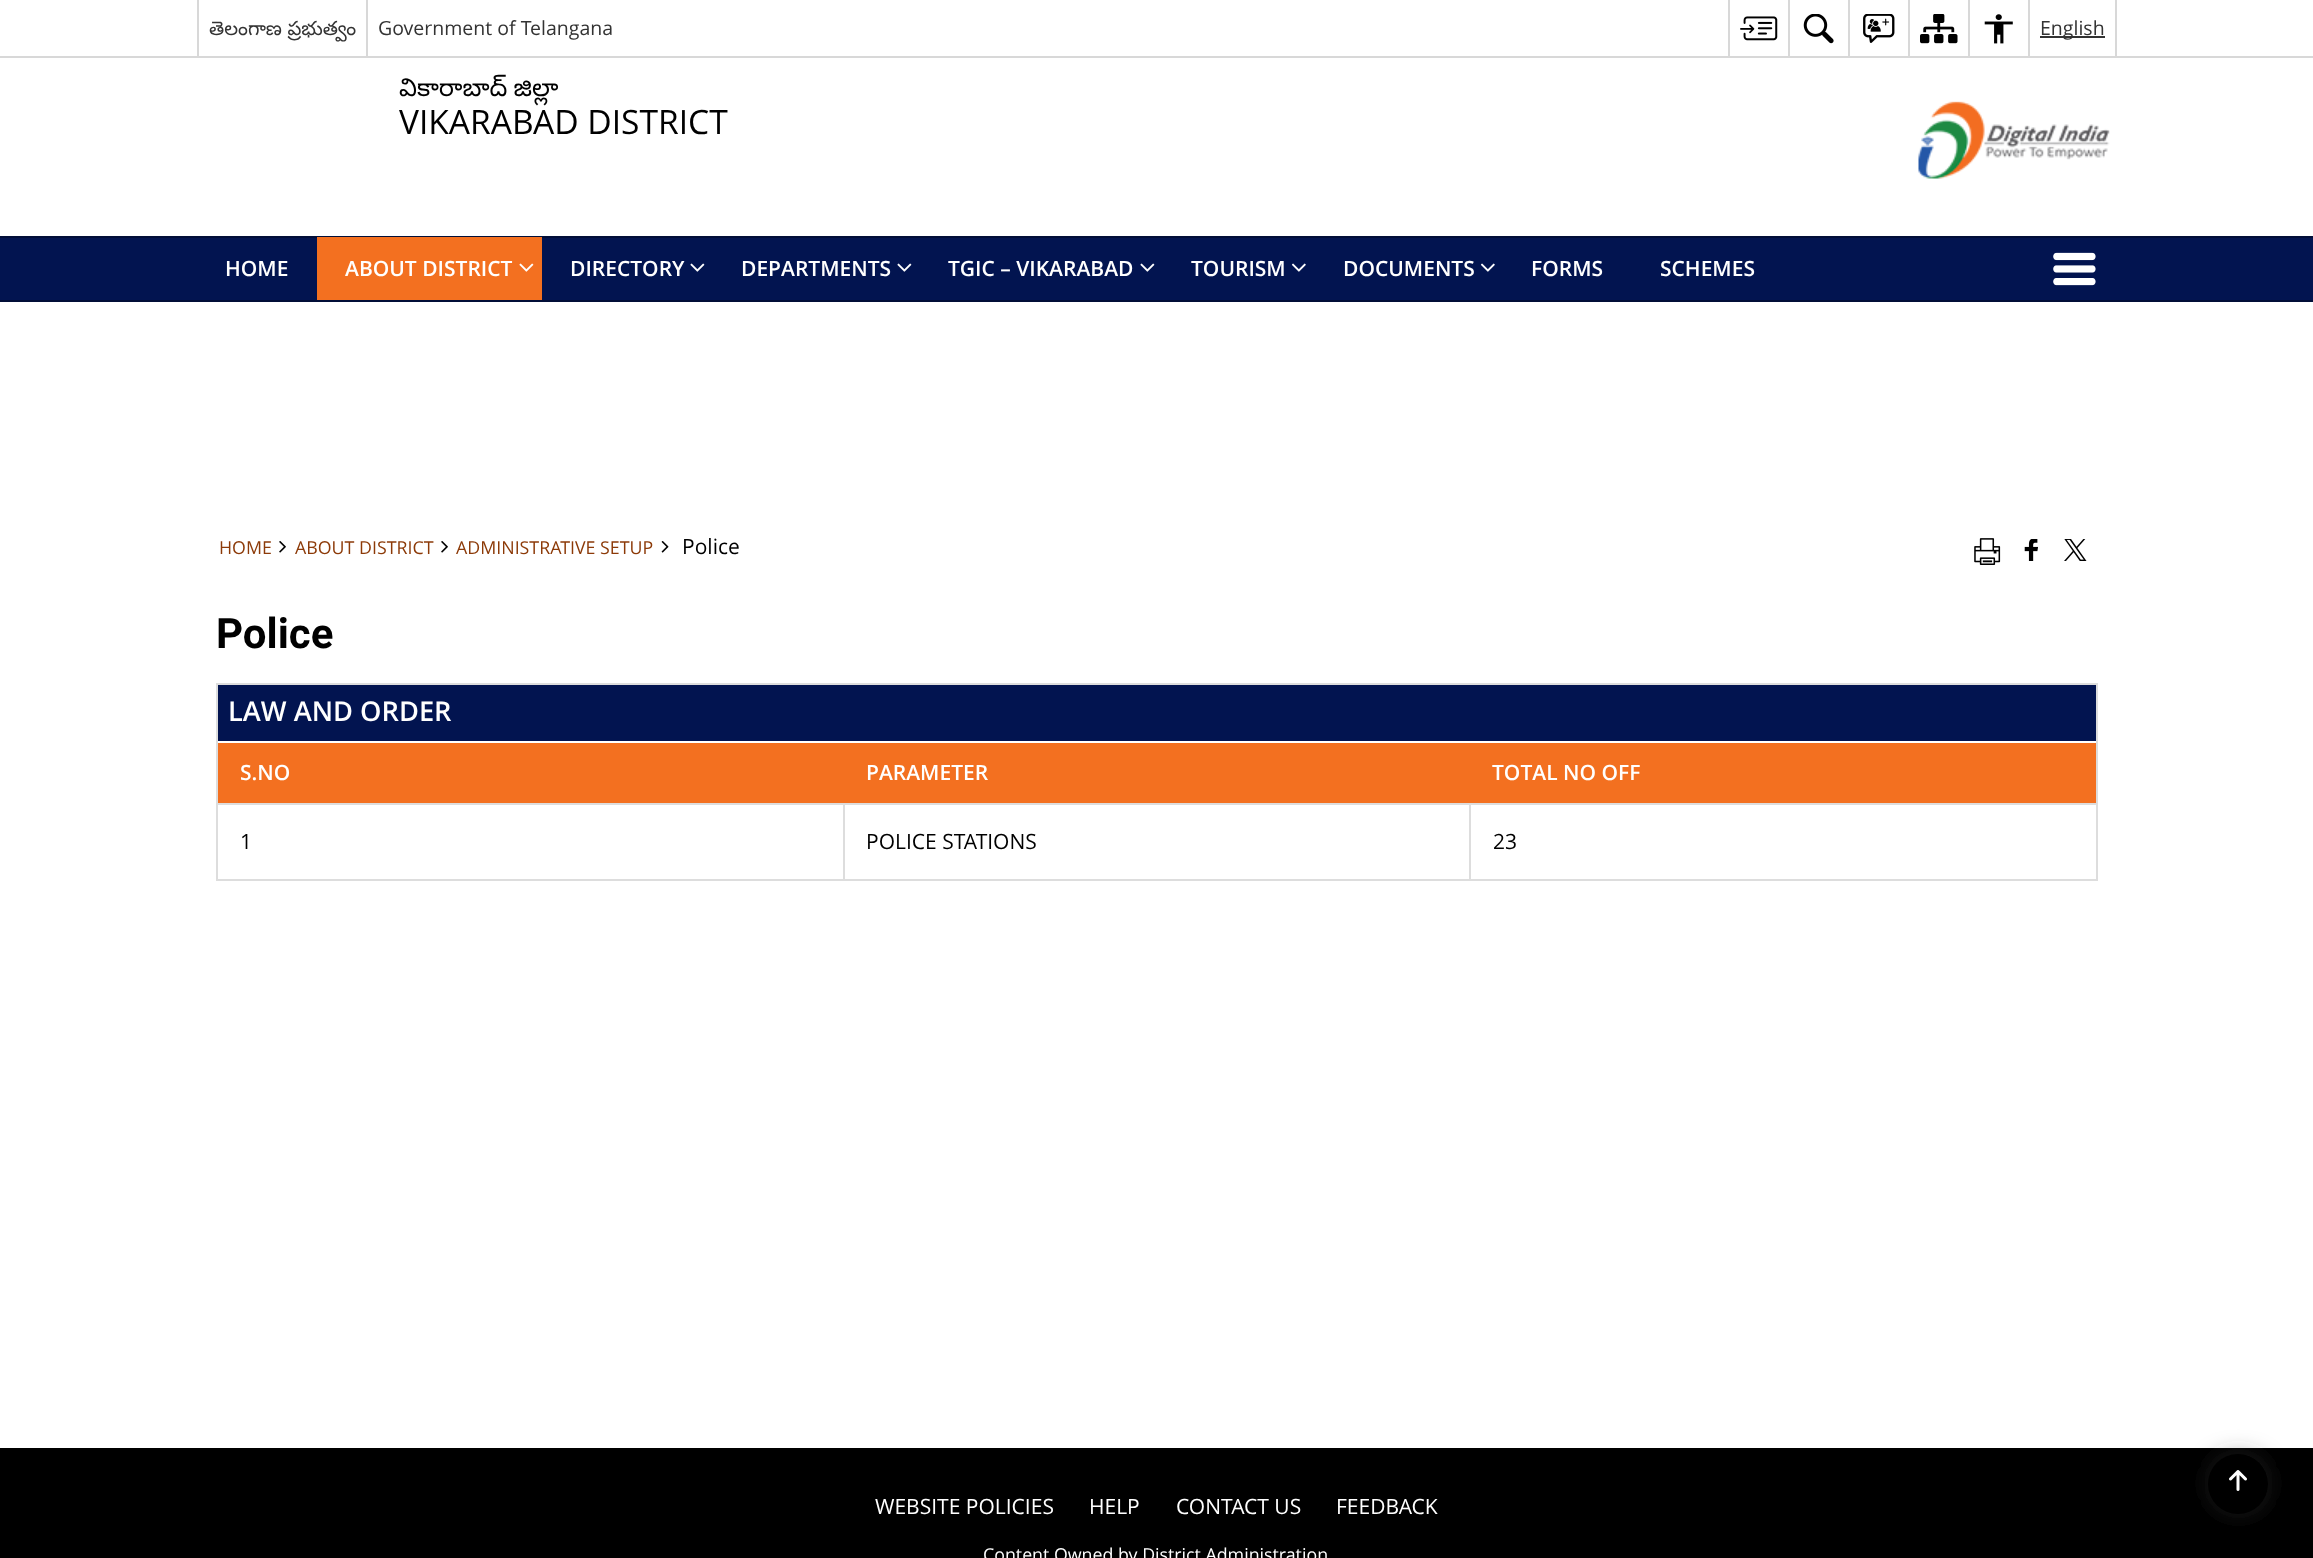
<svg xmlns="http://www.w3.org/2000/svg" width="2313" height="1558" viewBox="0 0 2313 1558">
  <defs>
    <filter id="blur1" x="-50%" y="-200%" width="200%" height="500%"><feGaussianBlur stdDeviation="14"/></filter>
  </defs>
  <rect width="100%" height="100%" fill="#ffffff"/>
  <rect x="0" y="56" width="2313" height="2" fill="#d8d8d8"/>
  <rect x="197" y="0" width="2" height="56" fill="#d8d8d8"/>
  <text x="209" y="35" font-family="Noto Sans Telugu" font-size="19.5" fill="#333333">తెలంగాణ ప్రభుత్వం</text>
  <rect x="366" y="0" width="2" height="56" fill="#d8d8d8"/>
  <text x="378" y="35" font-family="Open Sans" font-size="19.5" fill="#333333">Government of Telangana</text>
  <rect x="1728" y="0" width="2" height="56" fill="#d8d8d8"/>
  <image x="1740" y="16" width="38" height="25" href="img1.png"/>
  <rect x="1788" y="0" width="2" height="56" fill="#d8d8d8"/>
  <image x="1803" y="14" width="31" height="30" href="img2.png"/>
  <rect x="1848" y="0" width="2" height="56" fill="#d8d8d8"/>
  <image x="1863" y="14" width="32" height="29" href="img3.png"/>
  <rect x="1908" y="0" width="2" height="56" fill="#d8d8d8"/>
  <image x="1920" y="14" width="38" height="30" href="img4.png"/>
  <rect x="1968" y="0" width="2" height="56" fill="#d8d8d8"/>
  <image x="1984" y="14" width="29" height="30" href="img5.png"/>
  <rect x="2115" y="0" width="2" height="56" fill="#d8d8d8"/>
  <rect x="2028" y="0" width="2" height="56" fill="#d8d8d8"/>
  <rect x="2040" y="36" width="65" height="2" fill="#333333"/>
  <text x="2040" y="35" font-family="Open Sans" font-size="19.5" fill="#333333">English</text>
  <text x="399" y="96" word-spacing="-1" font-family="Noto Sans Telugu" font-size="25.25" fill="#000000">వికారాబాద్ జిల్లా</text>
  <text x="399" y="134" font-family="Open Sans" font-size="33.5" fill="#000000">VIKARABAD DISTRICT</text>
  <image x="1918" y="101" width="192" height="78" href="img6.png"/>
  <rect x="0" y="238" width="2313" height="62" fill="#021450"/>
  <rect x="0" y="236" width="2313" height="2" fill="#010e38"/>
  <rect x="0" y="300" width="2313" height="2" fill="#010e38"/>
  <text x="225" y="276" font-family="Open Sans" font-size="21" font-weight="600" fill="#ffffff">HOME</text>
  <rect x="317" y="237" width="225" height="63" fill="#f37020"/>
  <text x="345" y="276" font-family="Open Sans" font-size="21" font-weight="600" fill="#ffffff">ABOUT DISTRICT</text>
  <image x="519" y="263" width="15" height="9" href="img7.png"/>
  <text x="570" y="276" font-family="Open Sans" font-size="21" font-weight="600" fill="#ffffff">DIRECTORY</text>
  <image x="690" y="263" width="15" height="9" href="img8.png"/>
  <text x="741" y="276" font-family="Open Sans" font-size="21" font-weight="600" fill="#ffffff">DEPARTMENTS</text>
  <image x="897" y="263" width="15" height="9" href="img8.png"/>
  <text x="948" y="276" font-family="Open Sans" font-size="21" font-weight="600" fill="#ffffff">TGIC – VIKARABAD</text>
  <image x="1140" y="263" width="15" height="9" href="img8.png"/>
  <text x="1191" y="276" font-family="Open Sans" font-size="21" font-weight="600" fill="#ffffff">TOURISM</text>
  <image x="1291" y="263" width="15" height="9" href="img9.png"/>
  <text x="1343" y="276" font-family="Open Sans" font-size="21" font-weight="600" fill="#ffffff">DOCUMENTS</text>
  <image x="1480" y="263" width="15" height="9" href="img9.png"/>
  <text x="1531" y="276" font-family="Open Sans" font-size="21" font-weight="600" fill="#ffffff">FORMS</text>
  <text x="1660" y="276" font-family="Open Sans" font-size="21" font-weight="600" fill="#ffffff">SCHEMES</text>
  <image x="2053" y="252" width="43" height="34" href="img10.png"/>
  <text x="219" y="554" font-family="Open Sans" font-size="17.8" fill="#8c3a08">HOME</text>
  <image x="279" y="541" width="7" height="12" href="img11.png"/>
  <text x="295" y="554" font-family="Open Sans" font-size="17.8" fill="#8c3a08">ABOUT DISTRICT</text>
  <image x="441" y="541" width="7" height="12" href="img11.png"/>
  <text x="456" y="554" font-family="Open Sans" font-size="17.8" fill="#8c3a08">ADMINISTRATIVE SETUP</text>
  <image x="661" y="541" width="8" height="12" href="img12.png"/>
  <text x="682" y="554" font-family="Open Sans" font-size="21" fill="#000000">Police</text>
  <image x="1974" y="538" width="27" height="27" href="img13.png"/>
  <image x="2024" y="539" width="14" height="22" href="img14.png"/>
  <image x="2064" y="539" width="23" height="22" href="img15.png"/>
  <text x="216" y="648" font-family="Roboto" font-size="42" font-weight="bold" fill="#000000">Police</text>
  <rect x="216" y="683" width="1881" height="2" fill="#dddddd"/>
  <rect x="2096" y="683" width="2" height="198" fill="#dddddd"/>
  <rect x="216" y="879" width="1881" height="2" fill="#dddddd"/>
  <rect x="216" y="683" width="2" height="198" fill="#dddddd"/>
  <rect x="218" y="685" width="1878" height="56" fill="#021450"/>
  <text x="228" y="721" font-family="Open Sans" font-size="27.25" font-weight="600" fill="#ffffff">LAW AND ORDER</text>
  <rect x="218" y="743" width="1878" height="60" fill="#f37020"/>
  <text x="240" y="780" font-family="Open Sans" font-size="21" font-weight="600" fill="#ffffff">S.NO</text>
  <text x="866" y="780" font-family="Open Sans" font-size="21" font-weight="600" fill="#ffffff">PARAMETER</text>
  <text x="1492" y="780" font-family="Open Sans" font-size="21" font-weight="600" fill="#ffffff">TOTAL NO OFF</text>
  <rect x="216" y="803" width="1881" height="2" fill="#dddddd"/>
  <rect x="843" y="803" width="2" height="78" fill="#dddddd"/>
  <text x="240" y="849" font-family="Open Sans" font-size="21" fill="#000000">1</text>
  <rect x="1469" y="803" width="2" height="78" fill="#dddddd"/>
  <text x="866" y="849" font-family="Open Sans" font-size="21" fill="#000000">POLICE STATIONS</text>
  <text x="1493" y="849" font-family="Open Sans" font-size="21" fill="#000000">23</text>
  <rect x="0" y="1448" width="2313" height="110" fill="#000000"/>
  <text x="875" y="1514" font-family="Open Sans" font-size="21" fill="#ffffff">WEBSITE POLICIES</text>
  <text x="1089" y="1514" font-family="Open Sans" font-size="21" fill="#ffffff">HELP</text>
  <text x="1176" y="1514" font-family="Open Sans" font-size="21" fill="#ffffff">CONTACT US</text>
  <text x="1336" y="1514" font-family="Open Sans" font-size="21" fill="#ffffff">FEEDBACK</text>
  <text x="983" y="1561" font-family="Open Sans" font-size="17.8" fill="#ffffff">Content Owned by District Administration</text>
  <rect x="2216" y="1461" width="45" height="45" rx="22.5" fill="#3c3c3c" filter="url(#blur1)"/>
  <circle cx="2238" cy="1484" r="30" fill="#000000"/>
  <image x="2229" y="1470" width="18" height="21" href="img16.png"/>
</svg>
